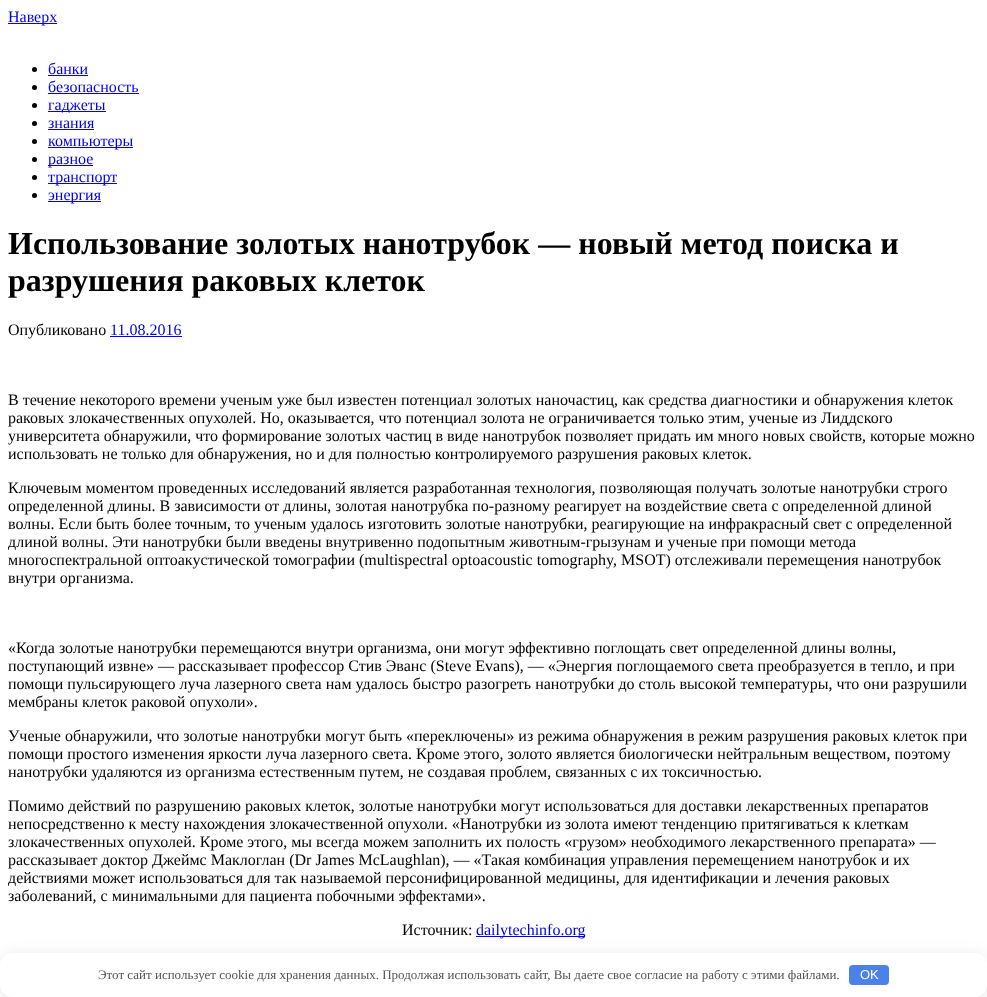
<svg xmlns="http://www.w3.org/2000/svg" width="987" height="997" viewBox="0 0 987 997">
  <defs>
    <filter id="blur1" x="-50%" y="-200%" width="200%" height="500%"><feGaussianBlur stdDeviation="10"/></filter>
  </defs>
  <rect width="100%" height="100%" fill="#ffffff"/>
  <rect x="8" y="23" width="49" height="1" fill="#0000ee"/>
  <text x="8" y="22" font-family="Liberation Serif" font-size="16" fill="#0000ee">Наверх</text>
  <circle cx="34.5" cy="69.5" r="2.5" fill="#000000"/>
  <text x="48" y="74" font-family="Liberation Serif" font-size="16" fill="#0000ee">банки</text>
  <rect x="48" y="75" width="40" height="1" fill="#0000ee"/>
  <circle cx="34.5" cy="87.5" r="2.5" fill="#000000"/>
  <text x="48" y="92" font-family="Liberation Serif" font-size="16" fill="#0000ee">безопасность</text>
  <rect x="48" y="93" width="91" height="1" fill="#0000ee"/>
  <circle cx="34.5" cy="105.5" r="2.5" fill="#000000"/>
  <rect x="48" y="111" width="58" height="1" fill="#0000ee"/>
  <text x="48" y="110" font-family="Liberation Serif" font-size="16" fill="#0000ee">гаджеты</text>
  <circle cx="34.5" cy="123.5" r="2.5" fill="#000000"/>
  <text x="48" y="128" font-family="Liberation Serif" font-size="16" fill="#0000ee">знания</text>
  <rect x="48" y="129" width="46" height="1" fill="#0000ee"/>
  <circle cx="34.5" cy="141.5" r="2.5" fill="#000000"/>
  <rect x="48" y="147" width="85" height="1" fill="#0000ee"/>
  <text x="48" y="146" font-family="Liberation Serif" font-size="16" fill="#0000ee">компьютеры</text>
  <circle cx="34.5" cy="159.5" r="2.5" fill="#000000"/>
  <rect x="48" y="165" width="45" height="1" fill="#0000ee"/>
  <text x="48" y="164" font-family="Liberation Serif" font-size="16" fill="#0000ee">разное</text>
  <circle cx="34.5" cy="177.5" r="2.5" fill="#000000"/>
  <rect x="48" y="183" width="69" height="1" fill="#0000ee"/>
  <text x="48" y="182" font-family="Liberation Serif" font-size="16" fill="#0000ee">транспорт</text>
  <circle cx="34.5" cy="195.5" r="2.5" fill="#000000"/>
  <rect x="48" y="201" width="53" height="1" fill="#0000ee"/>
  <text x="48" y="200" font-family="Liberation Serif" font-size="16" fill="#0000ee">энергия</text>
  <text x="8" y="254" font-family="Liberation Serif" font-size="32" font-weight="bold" fill="#000000">Использование золотых нанотрубок — новый метод поиска и</text>
  <text x="8" y="291" font-family="Liberation Serif" font-size="32" font-weight="bold" fill="#000000">разрушения раковых клеток</text>
  <text x="8" y="335" font-family="Liberation Serif" font-size="16" fill="#000000">Опубликовано</text>
  <text x="110" y="335" font-family="Liberation Serif" font-size="16" fill="#0000ee">11.08.2016</text>
  <rect x="110" y="336" width="72" height="1" fill="#0000ee"/>
  <text x="8" y="405" font-family="Liberation Serif" font-size="16" fill="#000000">В течение некоторого времени ученым уже был известен потенциал золотых наночастиц, как средства диагностики и обнаружения клеток</text>
  <text x="8" y="423" font-family="Liberation Serif" font-size="16" fill="#000000">раковых злокачественных опухолей. Но, оказывается, что потенциал золота не ограничивается только этим, ученые из Лиддского</text>
  <text x="8" y="441" font-family="Liberation Serif" font-size="16" fill="#000000">университета обнаружили, что формирование золотых частиц в виде нанотрубок позволяет придать им много новых свойств, которые можно</text>
  <text x="8" y="459" font-family="Liberation Serif" font-size="16" fill="#000000">использовать не только для обнаружения, но и для полностью контролируемого разрушения раковых клеток.</text>
  <text x="8" y="493" font-family="Liberation Serif" font-size="16" fill="#000000">Ключевым моментом проведенных исследований является разработанная технология, позволяющая получать золотые нанотрубки строго</text>
  <text x="8" y="511" font-family="Liberation Serif" font-size="16" fill="#000000">определенной длины. В зависимости от длины, золотая нанотрубка по-разному реагирует на воздействие света с определенной длиной</text>
  <text x="8" y="529" font-family="Liberation Serif" font-size="16" fill="#000000">волны. Если быть более точным, то ученым удалось изготовить золотые нанотрубки, реагирующие на инфракрасный свет с определенной</text>
  <text x="8" y="547" font-family="Liberation Serif" font-size="16" fill="#000000">длиной волны. Эти нанотрубки были введены внутривенно подопытным животным-грызунам и ученые при помощи метода</text>
  <text x="8" y="565" font-family="Liberation Serif" font-size="16" fill="#000000">многоспектральной оптоакустической томографии (multispectral optoacoustic tomography, MSOT) отслеживали перемещения нанотрубок</text>
  <text x="8" y="583" font-family="Liberation Serif" font-size="16" fill="#000000">внутри организма.</text>
  <text x="8" y="653" font-family="Liberation Serif" font-size="16" fill="#000000">«Когда золотые нанотрубки перемещаются внутри организма, они могут эффективно поглощать свет определенной длины волны,</text>
  <text x="8" y="671" font-family="Liberation Serif" font-size="16" fill="#000000">поступающий извне» — рассказывает профессор Стив Эванс (Steve Evans), — «Энергия поглощаемого света преобразуется в тепло, и при</text>
  <text x="8" y="689" font-family="Liberation Serif" font-size="16" fill="#000000">помощи пульсирующего луча лазерного света нам удалось быстро разогреть нанотрубки до столь высокой температуры, что они разрушили</text>
  <text x="8" y="707" font-family="Liberation Serif" font-size="16" fill="#000000">мембраны клеток раковой опухоли».</text>
  <text x="8" y="741" font-family="Liberation Serif" font-size="16" fill="#000000">Ученые обнаружили, что золотые нанотрубки могут быть «переключены» из режима обнаружения в режим разрушения раковых клеток при</text>
  <text x="8" y="759" font-family="Liberation Serif" font-size="16" fill="#000000">помощи простого изменения яркости луча лазерного света. Кроме этого, золото является биологически нейтральным веществом, поэтому</text>
  <text x="8" y="777" font-family="Liberation Serif" font-size="16" fill="#000000">нанотрубки удаляются из организма естественным путем, не создавая проблем, связанных с их токсичностью.</text>
  <text x="8" y="811" font-family="Liberation Serif" font-size="16" fill="#000000">Помимо действий по разрушению раковых клеток, золотые нанотрубки могут использоваться для доставки лекарственных препаратов</text>
  <text x="8" y="829" font-family="Liberation Serif" font-size="16" fill="#000000">непосредственно к месту нахождения злокачественной опухоли. «Нанотрубки из золота имеют тенденцию притягиваться к клеткам</text>
  <text x="8" y="847" font-family="Liberation Serif" font-size="16" fill="#000000">злокачественных опухолей. Кроме этого, мы всегда можем заполнить их полость «грузом» необходимого лекарственного препарата» —</text>
  <text x="8" y="865" font-family="Liberation Serif" font-size="16" fill="#000000">рассказывает доктор Джеймс Маклоглан (Dr James McLaughlan), — «Такая комбинация управления перемещением нанотрубок и их</text>
  <text x="8" y="883" font-family="Liberation Serif" font-size="16" fill="#000000">действиями может использоваться для так называемой персонифицированной медицины, для идентификации и лечения раковых</text>
  <text x="8" y="901" font-family="Liberation Serif" font-size="16" fill="#000000">заболеваний, с минимальными для пациента побочными эффектами».</text>
  <text x="402" y="935" font-family="Liberation Serif" font-size="16" fill="#000000">Источник:</text>
  <rect x="476" y="936" width="109" height="1" fill="#0000ee"/>
  <text x="476" y="935" font-family="Liberation Serif" font-size="16" fill="#0000ee">dailytechinfo.org</text>
  <rect x="5" y="961" width="977" height="34" rx="7" fill="#292c38" fill-opacity="0.2" filter="url(#blur1)"/>
  <rect x="0" y="953" width="987" height="44" rx="12" fill="#ffffff"/>
  <text x="98" y="979" font-family="Liberation Serif" font-size="13" fill="#555555">Этот сайт использует cookie для хранения данных. Продолжая использовать сайт, Вы даете свое согласие на работу с этими файлами.</text>
  <rect x="849" y="965" width="40" height="20" rx="4" fill="#4b81e8"/>
  <text x="860" y="979" font-family="Liberation Sans" font-size="13" fill="#ffffff">OK</text>
</svg>
